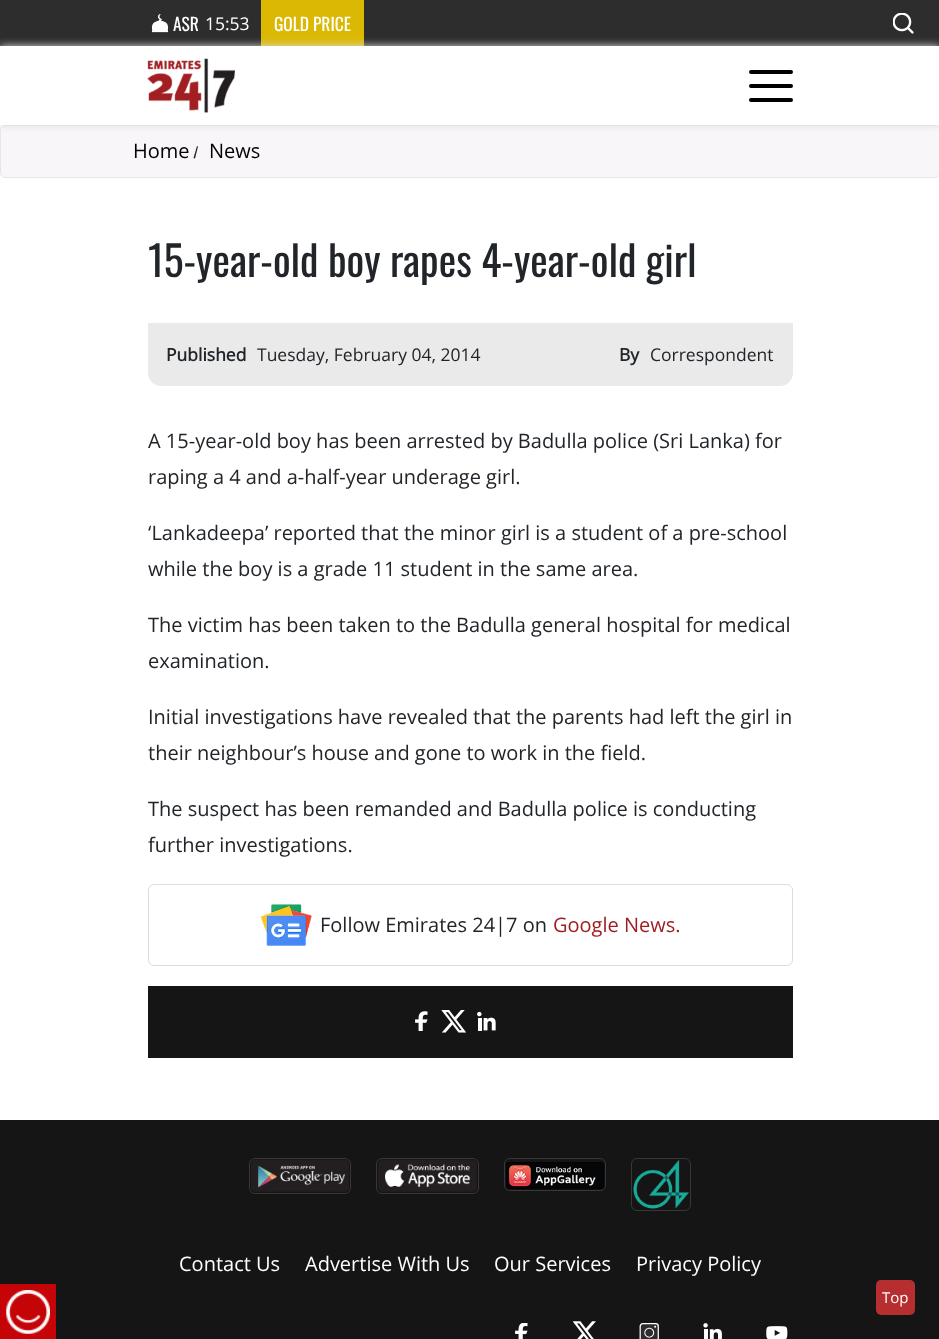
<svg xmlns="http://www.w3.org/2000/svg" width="939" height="1339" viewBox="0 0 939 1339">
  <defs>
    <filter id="blur1" x="-50%" y="-200%" width="200%" height="500%"><feGaussianBlur stdDeviation="4"/></filter>
  </defs>
  <rect width="100%" height="100%" fill="#ffffff"/>
  <rect x="0" y="0" width="939" height="46" fill="#2d2d2d"/>
  <image x="151" y="14" width="18" height="19" href="img1.png"/>
  <text x="173" y="31" font-family="Oswald" font-size="17.5" fill="#ffffff">ASR</text>
  <text x="205" y="30" font-family="Open Sans" font-size="17.5" fill="#ffffff">15:53</text>
  <rect x="261" y="0" width="103" height="46" fill="#dbb803"/>
  <text x="274" y="31" font-family="Oswald" font-size="17.5" fill="#ffffff">GOLD PRICE</text>
  <image x="893" y="13" width="21" height="21" href="img2.png"/>
  <rect x="0.5" y="125.5" width="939" height="52" rx="4.5" fill="#f8f6f8" stroke="#e6e6e6"/>
  <rect x="0" y="46" width="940" height="79" fill="#dddddd" filter="url(#blur1)"/>
  <rect x="0" y="46" width="939" height="79" fill="#ffffff"/>
  <image x="147" y="58" width="88" height="55" href="img3.png"/>
  <rect x="749" y="70" width="44" height="4" rx="2" fill="#000000"/>
  <rect x="749" y="84" width="44" height="4" rx="2" fill="#000000"/>
  <rect x="749" y="98" width="44" height="4" rx="2" fill="#000000"/>
  <text x="133" y="158" font-family="Open Sans" font-size="20" fill="#000000">Home</text>
  <path d="M197 146L198 146.5L195 158.5L193.5 158Z" fill="#212529"/>
  <text x="209" y="158" font-family="Open Sans" font-size="20" fill="#000000">News</text>
  <text x="148" y="277" font-family="Oswald" font-size="41.6" fill="#212529">15-year-old boy rapes 4-year-old girl</text>
  <path d="M148 323H793V373C793 380 787 386 780 386H161C154 386 148 380 148 373Z" fill="#eaeaea"/>
  <text x="166" y="361" font-family="Open Sans" font-size="17.5" font-weight="bold" fill="#212529">Published</text>
  <text x="257" y="361" font-family="Open Sans" font-size="17.5" fill="#212529">Tuesday, February 04, 2014</text>
  <text x="619" y="361" font-family="Open Sans" font-size="17.5" font-weight="bold" fill="#212529">By</text>
  <text x="650" y="361" font-family="Open Sans" font-size="17.5" fill="#212529">Correspondent</text>
  <text x="148" y="448" font-family="Open Sans" font-size="20" fill="#212529">A 15-year-old boy has been arrested by Badulla police (Sri Lanka) for</text>
  <text x="148" y="484" font-family="Open Sans" font-size="20" fill="#212529">raping a 4 and a-half-year underage girl.</text>
  <text x="148" y="540" font-family="Open Sans" font-size="20" fill="#212529">‘Lankadeepa’ reported that the minor girl is a student of a pre-school</text>
  <text x="148" y="576" font-family="Open Sans" font-size="20" fill="#212529">while the boy is a grade 11 student in the same area.</text>
  <text x="148" y="632" font-family="Open Sans" font-size="20" fill="#212529">The victim has been taken to the Badulla general hospital for medical</text>
  <text x="148" y="668" font-family="Open Sans" font-size="20" fill="#212529">examination.</text>
  <text x="148" y="724" font-family="Open Sans" font-size="20" fill="#212529">Initial investigations have revealed that the parents had left the girl in</text>
  <text x="148" y="760" font-family="Open Sans" font-size="20" fill="#212529">their neighbour’s house and gone to work in the field.</text>
  <text x="148" y="816" font-family="Open Sans" font-size="20" fill="#212529">The suspect has been remanded and Badulla police is conducting</text>
  <text x="148" y="852" font-family="Open Sans" font-size="20" fill="#212529">further investigations.</text>
  <rect x="148.5" y="884.5" width="644" height="81" rx="5.5" fill="none" stroke="#dddddd"/>
  <image x="261" y="904" width="51" height="42" href="img4.png"/>
  <text x="320" y="932" font-family="Open Sans" font-size="20" fill="#212529">Follow Emirates 24|7 on</text>
  <text x="553" y="932" font-family="Open Sans" font-size="20" fill="#a21d21">Google News.</text>
  <rect x="148" y="986" width="645" height="72" fill="#151515"/>
  <image x="415" y="1011" width="13" height="20" href="img5.png"/>
  <image x="441" y="1010" width="25" height="23" href="img6.png"/>
  <image x="477" y="1011" width="19" height="20" href="img7.png"/>
  <rect x="0" y="1120" width="939" height="219" fill="#151515"/>
  <rect x="249.5" y="1158.5" width="101" height="35" rx="5.5" fill="none" stroke="#373737"/>
  <image x="251" y="1159" width="98" height="33" href="img8.png"/>
  <rect x="376.5" y="1158.5" width="102" height="35" rx="5.5" fill="none" stroke="#373737"/>
  <image x="378" y="1159" width="99" height="33" href="img9.png"/>
  <rect x="504.5" y="1158.5" width="101" height="32" rx="5.5" fill="none" stroke="#373737"/>
  <image x="506" y="1162" width="99" height="28" href="img10.png"/>
  <rect x="631.5" y="1158.5" width="59" height="52" rx="5.5" fill="none" stroke="#373737"/>
  <image x="633" y="1160" width="57" height="49" href="img11.png"/>
  <text x="179" y="1271" font-family="Open Sans" font-size="20" fill="#ffffff">Contact Us</text>
  <text x="305" y="1271" font-family="Open Sans" font-size="20" fill="#ffffff">Advertise With Us</text>
  <text x="494" y="1271" font-family="Open Sans" font-size="20" fill="#ffffff">Our Services</text>
  <text x="636" y="1271" font-family="Open Sans" font-size="20" fill="#ffffff">Privacy Policy</text>
  <image x="515" y="1323" width="13" height="16" href="img12.png"/>
  <image x="573" y="1321" width="23" height="18" href="img13.png"/>
  <image x="639" y="1323" width="20" height="16" href="img14.png"/>
  <image x="703" y="1323" width="19" height="16" href="img15.png"/>
  <image x="766" y="1326" width="22" height="13" href="img16.png"/>
  <rect x="0" y="1284" width="56" height="55" fill="#c50408"/>
  <image x="6" y="1290" width="44" height="44" href="img17.png"/>
  <rect x="876" y="1280" width="39" height="35" rx="5" fill="#b62e30"/>
  <text x="882" y="1303" font-family="Open Sans" font-size="15" fill="#ffffff">Top</text>
</svg>
